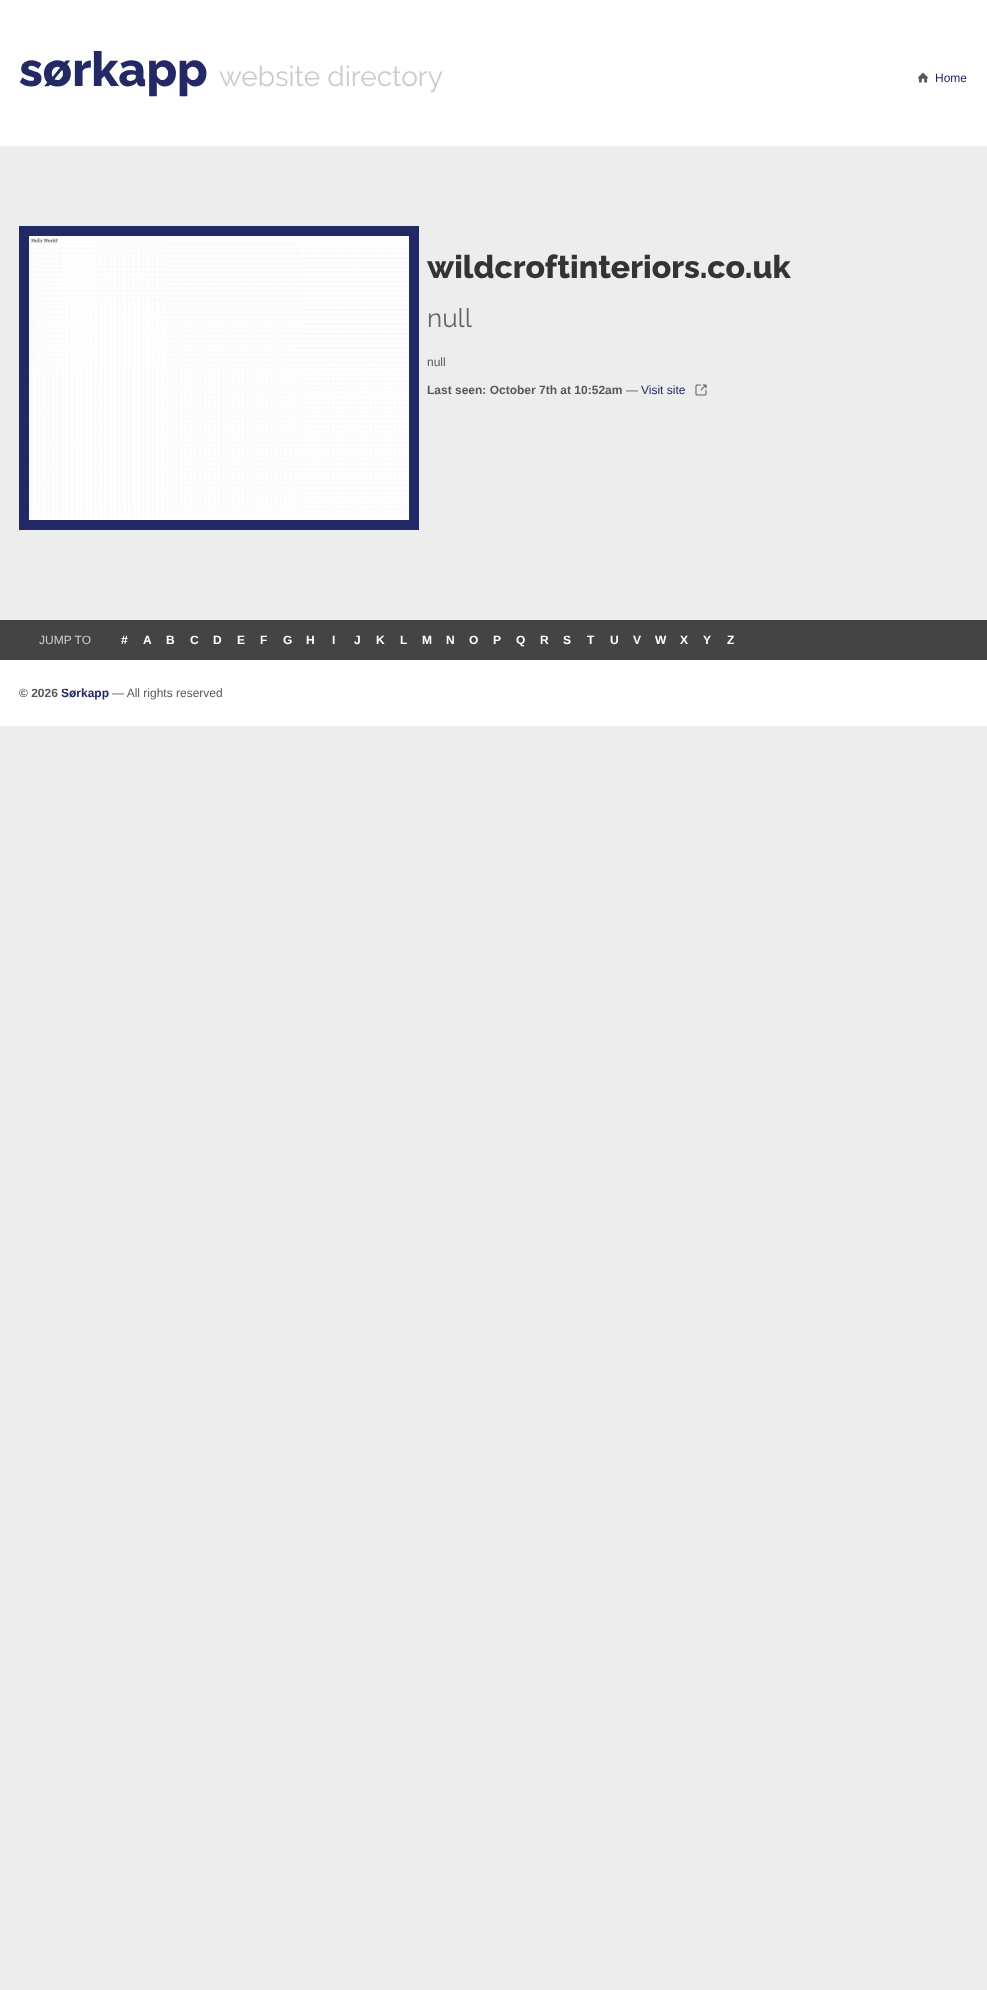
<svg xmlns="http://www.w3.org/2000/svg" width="987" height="1990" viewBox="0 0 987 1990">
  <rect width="100%" height="100%" fill="#ededed"/>
  <rect x="0" y="0" width="987" height="146" fill="#ffffff"/>
  <text x="19" y="86" font-family="Raleway" font-size="48" font-weight="800" fill="#222965">sørkapp</text>
  <text x="219" y="86" font-family="Raleway" font-size="28" fill="#cbcbcb">website directory</text>
  <image x="917" y="72" width="12" height="11" href="img1.png"/>
  <text x="935" y="82" font-family="Liberation Sans" font-size="12" fill="#222965">Home</text>
  <rect x="24" y="231" width="390" height="294" fill="none" stroke="#222965" stroke-width="10"/>
  <image x="29" y="236" width="380" height="284" href="img2.png"/>
  <text x="427" y="278" font-family="Raleway" font-size="32" font-weight="800" fill="#343434">wildcroftinteriors.co.uk</text>
  <text x="427" y="327" font-family="Raleway" font-size="26" fill="#666666">null</text>
  <text x="427" y="366" font-family="Liberation Sans" font-size="12" fill="#585858">null</text>
  <text x="427" y="394" font-family="Liberation Sans" font-size="12" font-weight="bold" fill="#585858">Last seen: October 7th at 10:52am</text>
  <text x="626" y="394" font-family="Liberation Sans" font-size="12" fill="#585858">—</text>
  <text x="641" y="394" font-family="Liberation Sans" font-size="12" fill="#222965">Visit site</text>
  <image x="695" y="384" width="12" height="12" href="img3.png"/>
  <rect x="0" y="620" width="987" height="40" fill="#444444"/>
  <text x="39" y="644" font-family="Liberation Sans" font-size="12" fill="#cbcbcb">JUMP TO</text>
  <text x="121" y="644" font-family="Liberation Sans" font-size="12" font-weight="bold" fill="#ffffff">#</text>
  <text x="143" y="644" font-family="Liberation Sans" font-size="12" font-weight="bold" fill="#ffffff">A</text>
  <text x="166" y="644" font-family="Liberation Sans" font-size="12" font-weight="bold" fill="#ffffff">B</text>
  <text x="190" y="644" font-family="Liberation Sans" font-size="12" font-weight="bold" fill="#ffffff">C</text>
  <text x="213" y="644" font-family="Liberation Sans" font-size="12" font-weight="bold" fill="#ffffff">D</text>
  <text x="237" y="644" font-family="Liberation Sans" font-size="12" font-weight="bold" fill="#ffffff">E</text>
  <text x="260" y="644" font-family="Liberation Sans" font-size="12" font-weight="bold" fill="#ffffff">F</text>
  <text x="283" y="644" font-family="Liberation Sans" font-size="12" font-weight="bold" fill="#ffffff">G</text>
  <text x="306" y="644" font-family="Liberation Sans" font-size="12" font-weight="bold" fill="#ffffff">H</text>
  <text x="332" y="644" font-family="Liberation Sans" font-size="12" font-weight="bold" fill="#ffffff">I</text>
  <text x="354" y="644" font-family="Liberation Sans" font-size="12" font-weight="bold" fill="#ffffff">J</text>
  <text x="376" y="644" font-family="Liberation Sans" font-size="12" font-weight="bold" fill="#ffffff">K</text>
  <text x="400" y="644" font-family="Liberation Sans" font-size="12" font-weight="bold" fill="#ffffff">L</text>
  <text x="422" y="644" font-family="Liberation Sans" font-size="12" font-weight="bold" fill="#ffffff">M</text>
  <text x="446" y="644" font-family="Liberation Sans" font-size="12" font-weight="bold" fill="#ffffff">N</text>
  <text x="469" y="644" font-family="Liberation Sans" font-size="12" font-weight="bold" fill="#ffffff">O</text>
  <text x="493" y="644" font-family="Liberation Sans" font-size="12" font-weight="bold" fill="#ffffff">P</text>
  <text x="516" y="644" font-family="Liberation Sans" font-size="12" font-weight="bold" fill="#ffffff">Q</text>
  <text x="540" y="644" font-family="Liberation Sans" font-size="12" font-weight="bold" fill="#ffffff">R</text>
  <text x="563" y="644" font-family="Liberation Sans" font-size="12" font-weight="bold" fill="#ffffff">S</text>
  <text x="587" y="644" font-family="Liberation Sans" font-size="12" font-weight="bold" fill="#ffffff">T</text>
  <text x="610" y="644" font-family="Liberation Sans" font-size="12" font-weight="bold" fill="#ffffff">U</text>
  <text x="633" y="644" font-family="Liberation Sans" font-size="12" font-weight="bold" fill="#ffffff">V</text>
  <text x="655" y="644" font-family="Liberation Sans" font-size="12" font-weight="bold" fill="#ffffff">W</text>
  <text x="680" y="644" font-family="Liberation Sans" font-size="12" font-weight="bold" fill="#ffffff">X</text>
  <text x="703" y="644" font-family="Liberation Sans" font-size="12" font-weight="bold" fill="#ffffff">Y</text>
  <text x="727" y="644" font-family="Liberation Sans" font-size="12" font-weight="bold" fill="#ffffff">Z</text>
  <rect x="0" y="660" width="987" height="66" fill="#ffffff"/>
  <text x="19" y="697" font-family="Liberation Sans" font-size="12" font-weight="bold" fill="#585858">© 2026</text>
  <text x="61" y="697" font-family="Liberation Sans" font-size="12" font-weight="bold" fill="#222965">Sørkapp</text>
  <text x="112" y="697" font-family="Liberation Sans" font-size="12" fill="#585858">— All rights reserved</text>
</svg>
